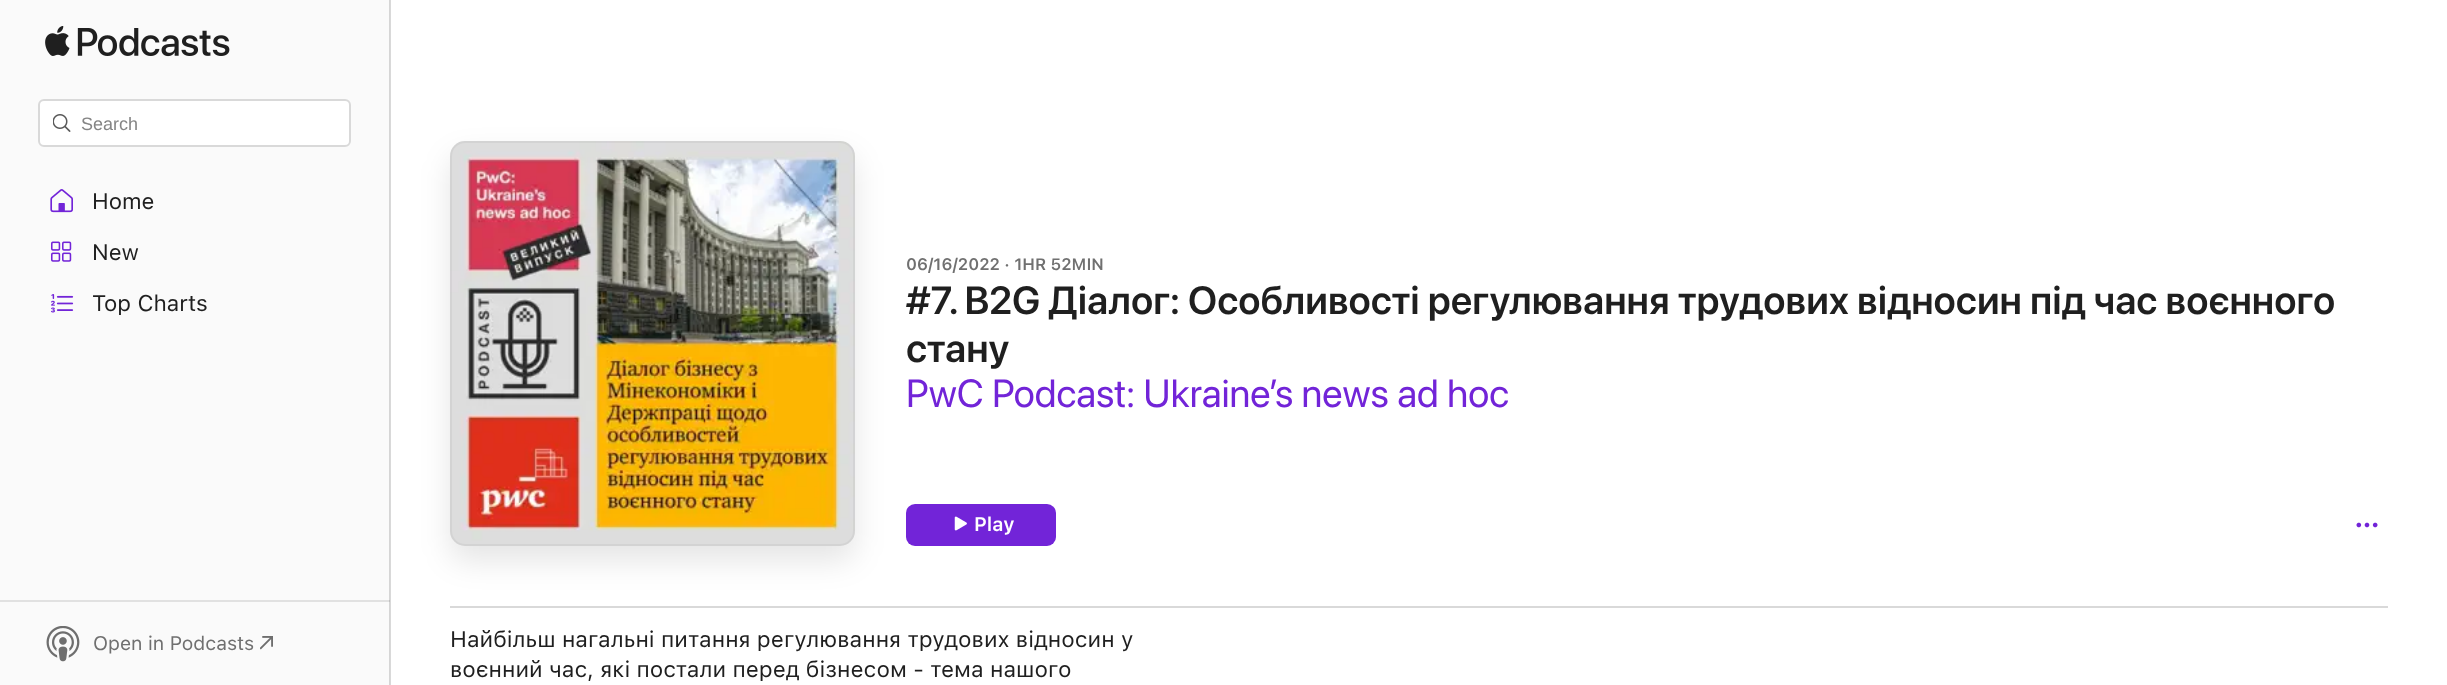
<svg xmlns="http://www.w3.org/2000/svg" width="2447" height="685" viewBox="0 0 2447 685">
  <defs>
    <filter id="blur1" x="-50%" y="-200%" width="200%" height="500%"><feGaussianBlur stdDeviation="15"/></filter>
  </defs>
  <rect width="100%" height="100%" fill="#ffffff"/>
  <rect x="390" y="0" width="1" height="685" fill="#d9d9d9"/>
  <rect x="0" y="0" width="389" height="685" fill="#fafafa"/>
  <rect x="0" y="600" width="390" height="2" fill="#e1e1e1"/>
  <rect x="389" y="0" width="1" height="685" fill="#d5d5d5"/>
  <rect x="389" y="600" width="1" height="2" fill="#c0c0c0"/>
  <image x="45" y="26" width="185" height="31" href="img1.png"/>
  <rect x="39" y="100" width="311" height="46" rx="5" fill="#ffffff" stroke="#d9d9d9" stroke-width="2"/>
  <image x="53" y="114" width="18" height="18" href="img2.png"/>
  <text x="81" y="130" font-family="Liberation Sans" font-size="18" fill="#858585">Search</text>
  <image x="50" y="189" width="23" height="24" href="img3.png"/>
  <text x="92" y="209" font-family="'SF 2'" font-size="22.5" fill="#1f1f1f">Home</text>
  <image x="51" y="241" width="21" height="21" href="img4.png"/>
  <text x="92" y="260" font-family="'SF 2'" font-size="22.5" fill="#1f1f1f">New</text>
  <image x="51" y="294" width="23" height="19" href="img5.png"/>
  <text x="92" y="311" font-family="'SF 2'" font-size="22.5" fill="#1f1f1f">Top Charts</text>
  <image x="46" y="626" width="34" height="36" href="img6.png"/>
  <text x="93" y="650" font-family="'SF 2'" font-size="19.5" fill="#707070">Open in Podcasts</text>
  <image x="260" y="636" width="13" height="14" href="img7.png"/>
  <rect x="450" y="606" width="1938" height="2" fill="#d9d9d9"/>
  <rect x="450" y="156" width="405" height="405" rx="15" fill="#000000" fill-opacity="0.1" filter="url(#blur1)"/>
  <image x="450" y="141" width="405" height="405" href="img8.png"/>
  <rect x="451" y="142" width="403" height="403" rx="14" fill="none" stroke="#808080" stroke-opacity="0.1" stroke-width="2"/>
  <text x="906" y="270" font-family="SF" font-size="16.5" font-weight="600" fill="#707070">06/16/2022 · 1HR 52MIN</text>
  <text x="906" y="314" font-family="'SF 2'" font-size="39" font-weight="600" fill="#1f1f1f">#7. B2G Діалог: Особливості регулювання трудових відносин під час воєнного</text>
  <text x="906" y="362" font-family="'SF 2'" font-size="39" font-weight="600" fill="#1f1f1f">стану</text>
  <text x="906" y="407" font-family="SF" font-size="39" fill="#7224d8">PwC Podcast: Ukraine’s news ad hoc</text>
  <rect x="906" y="504" width="150" height="42" rx="9" fill="#7224d8"/>
  <image x="954" y="516" width="13" height="15" href="img9.png"/>
  <text x="974" y="531" font-family="SF" font-size="19.5" font-weight="600" fill="#ffffff">Play</text>
  <image x="2356" y="522" width="22" height="6" href="img10.png"/>
  <text x="450" y="647" font-family="'SF 2'" font-size="22.5" fill="#1f1f1f">Найбільш нагальні питання регулювання трудових відносин у</text>
  <text x="450" y="677" font-family="'SF 2'" font-size="22.5" fill="#1f1f1f">воєнний час, які постали перед бізнесом - тема нашого</text>
</svg>
